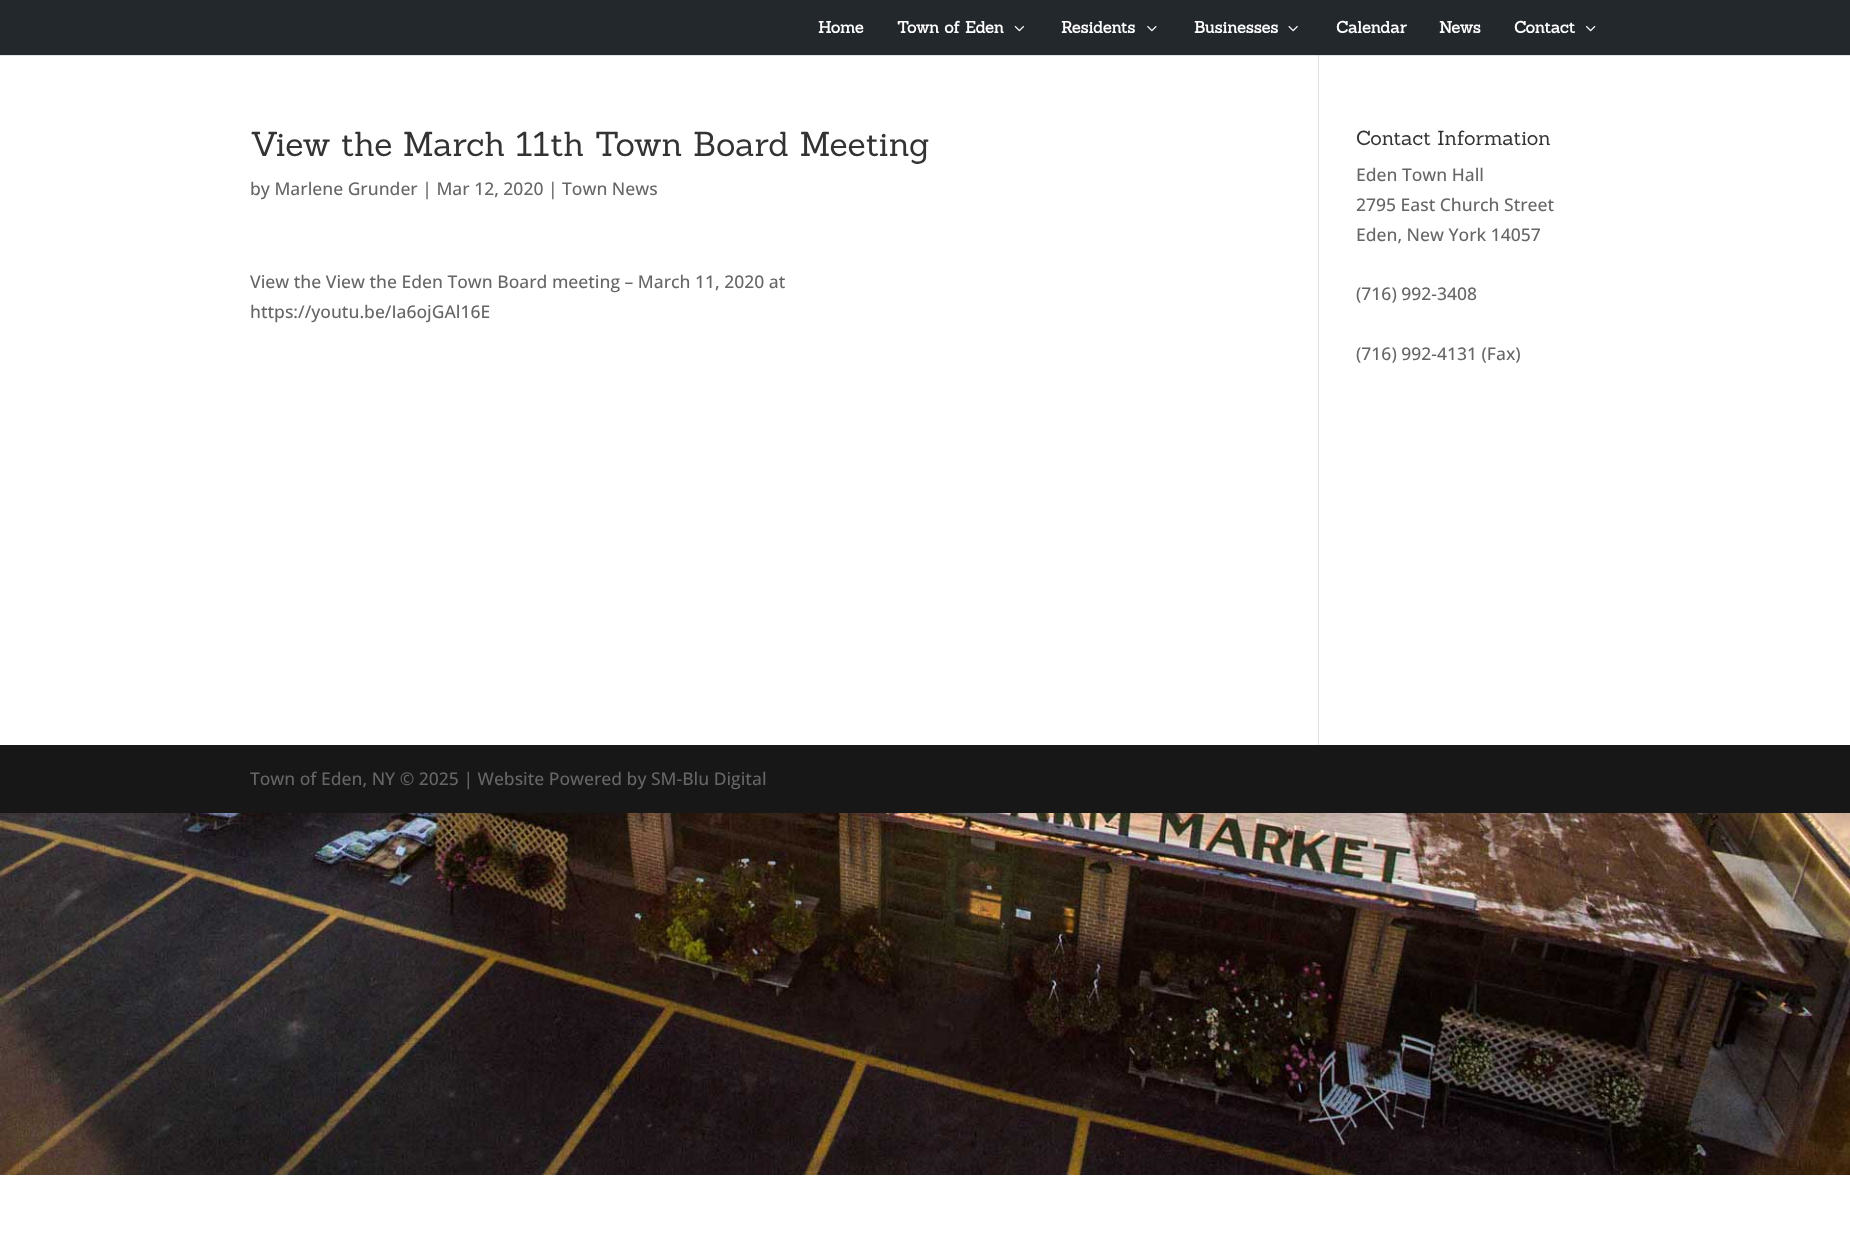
<svg xmlns="http://www.w3.org/2000/svg" width="1850" height="1241" viewBox="0 0 1850 1241">
  <rect width="100%" height="100%" fill="#ffffff"/>
  <image x="0" y="813" width="1850" height="362" href="img1.png"/>
  <rect x="1318" y="55" width="1" height="690" fill="#e2e2e2"/>
  <rect x="0" y="55" width="1850" height="1" fill="#000000" fill-opacity="0.1"/>
  <rect x="0" y="0" width="1850" height="55" fill="#23282d"/>
  <text x="818" y="33" font-family="Sanchez" font-size="16.25" font-weight="bold" fill="#ffffff">Home</text>
  <text x="897" y="33" font-family="Sanchez" font-size="16.25" font-weight="bold" fill="#ffffff">Town of Eden</text>
  <image x="1014" y="26" width="10" height="6" href="img2.png"/>
  <text x="1061" y="33" font-family="Sanchez" font-size="16.25" font-weight="bold" fill="#ffffff">Residents</text>
  <image x="1147" y="26" width="10" height="6" href="img3.png"/>
  <text x="1194" y="33" font-family="Sanchez" font-size="16.25" font-weight="bold" fill="#ffffff">Businesses</text>
  <image x="1288" y="26" width="10" height="6" href="img4.png"/>
  <text x="1336" y="33" font-family="Sanchez" font-size="16.25" font-weight="bold" fill="#ffffff">Calendar</text>
  <text x="1439" y="33" font-family="Sanchez" font-size="16.25" font-weight="bold" fill="#ffffff">News</text>
  <text x="1514" y="33" font-family="Sanchez" font-size="16.25" font-weight="bold" fill="#ffffff">Contact</text>
  <image x="1586" y="26" width="10" height="6" href="img5.png"/>
  <text x="250" y="156" font-family="Sanchez" font-size="33.75" fill="#333333">View the March 11th Town Board Meeting</text>
  <text x="250" y="195" font-family="Open Sans" font-size="17.5" font-weight="500" fill="#666666">by Marlene Grunder | Mar 12, 2020 | Town News</text>
  <text x="250" y="288" font-family="Open Sans" font-size="17.5" font-weight="500" fill="#666666">View the View the Eden Town Board meeting – March 11, 2020 at</text>
  <text x="250" y="318" font-family="Open Sans" font-size="17.5" font-weight="500" fill="#666666">https://youtu.be/Ia6ojGAl16E</text>
  <text x="1356" y="145" font-family="Sanchez" font-size="20" fill="#333333">Contact Information</text>
  <text x="1356" y="181" font-family="Open Sans" font-size="17.5" font-weight="500" fill="#666666">Eden Town Hall</text>
  <text x="1356" y="211" font-family="Open Sans" font-size="17.5" font-weight="500" fill="#666666">2795 East Church Street</text>
  <text x="1356" y="241" font-family="Open Sans" font-size="17.5" font-weight="500" fill="#666666">Eden, New York 14057</text>
  <text x="1356" y="300" font-family="Open Sans" font-size="17.5" font-weight="500" fill="#666666">(716) 992-3408</text>
  <text x="1356" y="360" font-family="Open Sans" font-size="17.5" font-weight="500" fill="#666666">(716) 992-4131 (Fax)</text>
  <rect x="0" y="745" width="1850" height="68" fill="#171717"/>
  <text x="250" y="785" font-family="Open Sans" font-size="17.5" font-weight="500" fill="#666666">Town of Eden, NY © 2025 | Website Powered by SM-Blu Digital</text>
</svg>
